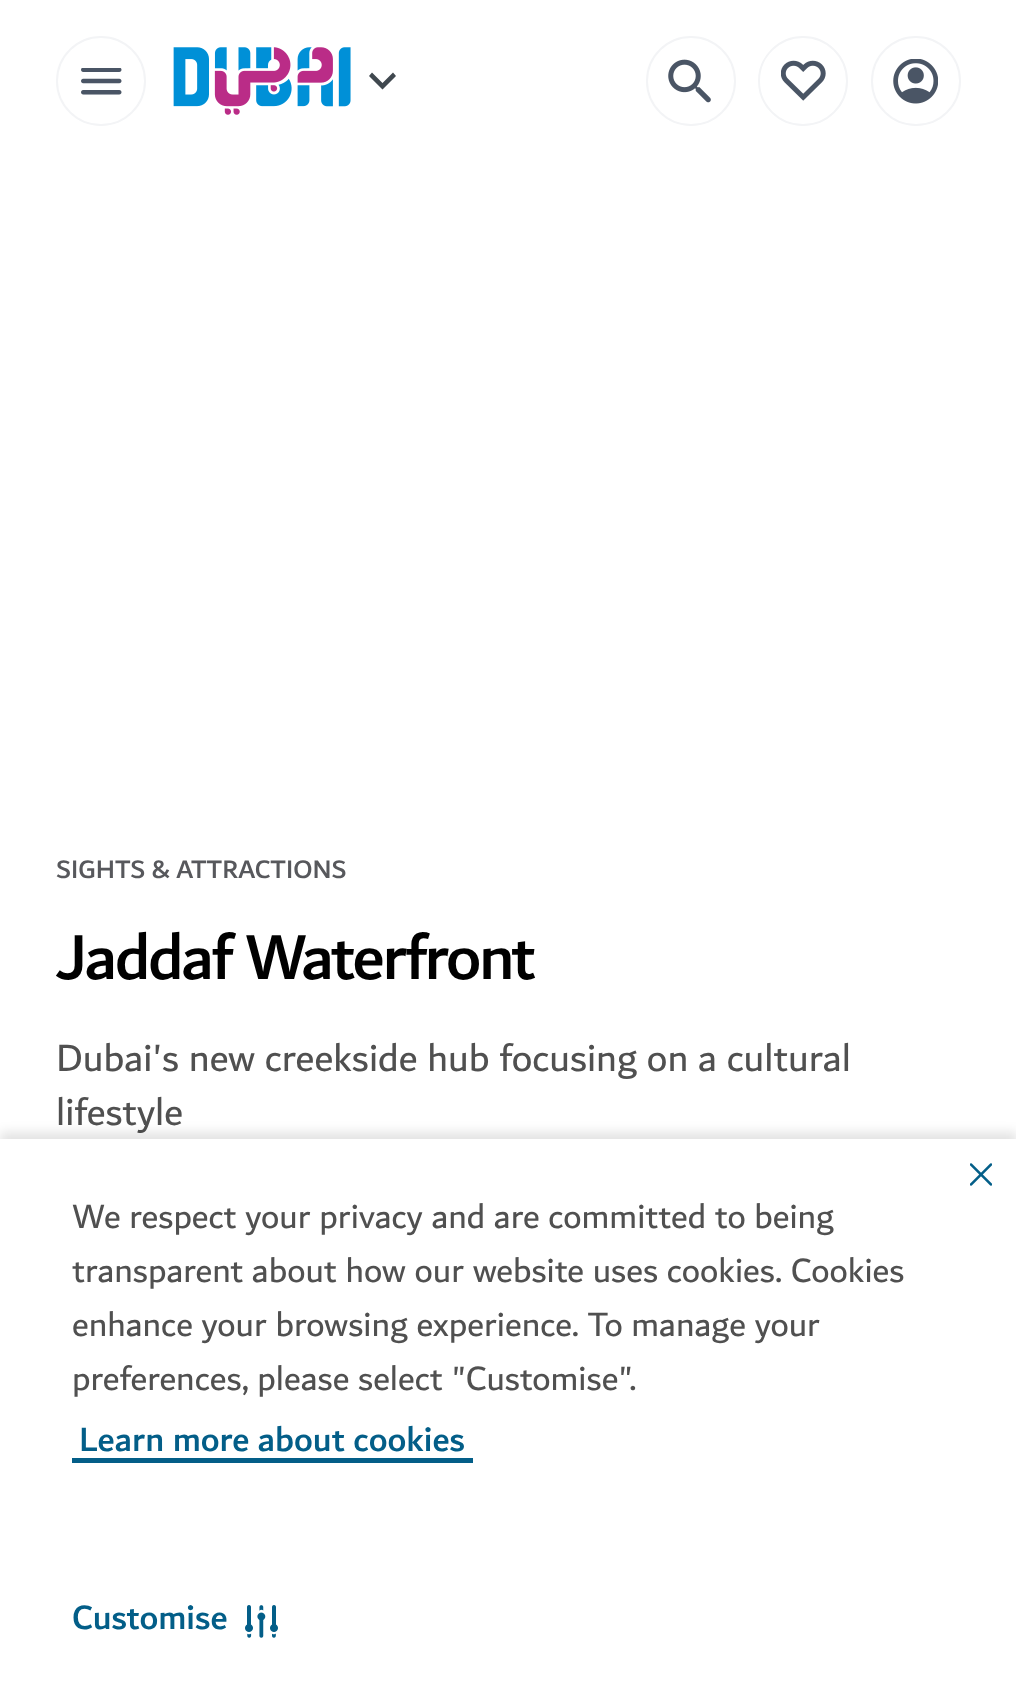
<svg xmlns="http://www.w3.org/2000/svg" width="1016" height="1708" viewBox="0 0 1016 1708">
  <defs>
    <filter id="blur1" x="-50%" y="-200%" width="200%" height="500%"><feGaussianBlur stdDeviation="5.5"/></filter>
    <linearGradient id="g1" gradientUnits="userSpaceOnUse" x1="272" y1="1476" x2="272" y2="1409"><stop offset="0" stop-color="#ffffff"/><stop offset="0.2" stop-color="#ffffff"/><stop offset="0.2" stop-color="#035e88"/><stop offset="0.27" stop-color="#035e88"/><stop offset="0.27" stop-color="#ffffff"/></linearGradient>
  </defs>
  <rect width="100%" height="100%" fill="#ffffff"/>
  <circle cx="101" cy="81" r="44" fill="none" stroke="#f3f4f6" stroke-width="2"/>
  <image x="81" y="68" width="41" height="27" href="img1.png"/>
  <image x="173" y="47" width="178" height="68" href="img2.png"/>
  <path d="M372 72.5L382.5 83L393 72.5L396 76L382.5 89.5L369 76Z" fill="#40484f"/>
  <circle cx="691" cy="81" r="44" fill="none" stroke="#f3f4f6" stroke-width="2"/>
  <image x="668" y="59" width="43" height="44" href="img3.png"/>
  <circle cx="803" cy="81" r="44" fill="none" stroke="#f3f4f6" stroke-width="2"/>
  <image x="781" y="60" width="45" height="41" href="img4.png"/>
  <circle cx="916" cy="81" r="44" fill="none" stroke="#f3f4f6" stroke-width="2"/>
  <image x="893" y="59" width="45" height="45" href="img5.png"/>
  <text x="56" y="878" font-family="'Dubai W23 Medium'" font-size="27" font-weight="500" fill="#57585c">SIGHTS &amp; ATTRACTIONS</text>
  <text x="56" y="979" font-family="'Dubai W23 Medium'" font-size="67.5" font-weight="500" letter-spacing="-2.25" fill="#000000">Jaddaf Waterfront</text>
  <text x="56" y="1071" font-family="'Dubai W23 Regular'" font-size="40.5" fill="#505050">Dubai's new creekside hub focusing on a cultural</text>
  <text x="56" y="1125" font-family="'Dubai W23 Regular'" font-size="40.5" fill="#505050">lifestyle</text>
  <rect x="0" y="1132" width="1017" height="571" fill="#000000" fill-opacity="0.11" filter="url(#blur1)"/>
  <rect x="0" y="1139" width="1016" height="569" fill="#ffffff"/>
  <text x="72" y="1228" font-family="'Dubai W23 Regular'" font-size="36" fill="#505050">We respect your privacy and are committed to being</text>
  <text x="72" y="1282" font-family="'Dubai W23 Regular'" font-size="36" fill="#505050">transparent about how our website uses cookies. Cookies</text>
  <text x="72" y="1336" font-family="'Dubai W23 Regular'" font-size="36" fill="#505050">enhance your browsing experience. To manage your</text>
  <text x="72" y="1390" font-family="'Dubai W23 Regular'" font-size="36" fill="#505050">preferences, please select "Customise".</text>
  <rect x="72" y="1458" width="401" height="5" fill="url(#g1)"/>
  <text x="79" y="1451" font-family="'Dubai W23 Medium'" font-size="36" font-weight="500" fill="#035e88">Learn more about cookies</text>
  <image x="970" y="1163" width="22" height="23" href="img6.png"/>
  <text x="72" y="1629" font-family="'Dubai W23 Medium'" font-size="36" font-weight="500" fill="#035e88">Customise</text>
  <image x="245" y="1605" width="33" height="33" href="img7.png"/>
</svg>
